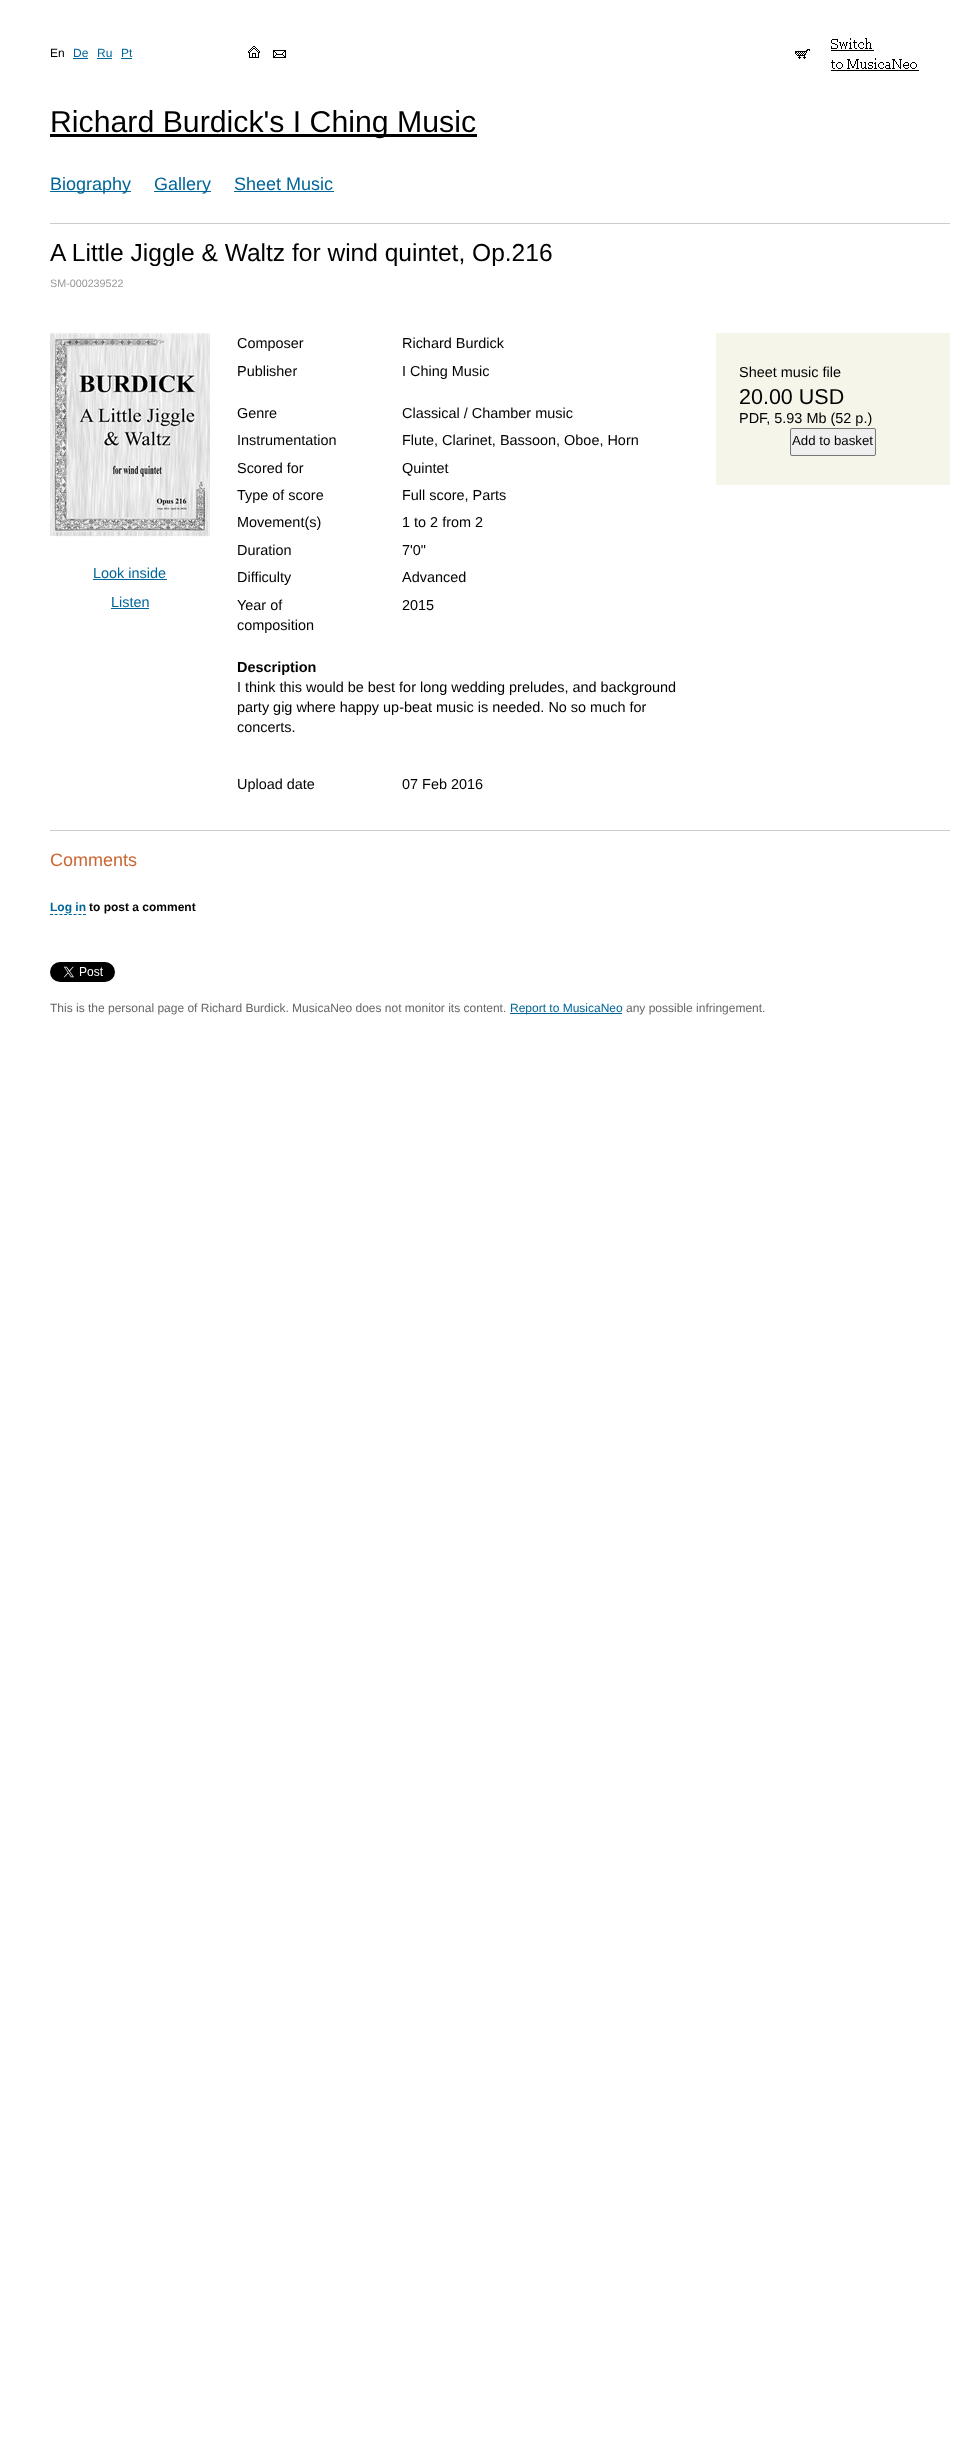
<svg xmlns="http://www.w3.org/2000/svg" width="976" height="2460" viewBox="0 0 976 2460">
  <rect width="100%" height="100%" fill="#ffffff"/>
  <text x="50" y="57" font-family="Liberation Sans" font-size="12" fill="#000000">En</text>
  <text x="73" y="57" font-family="Liberation Sans" font-size="12" fill="#006699">De</text>
  <rect x="73" y="58" width="15" height="1" fill="#006699"/>
  <text x="97" y="57" font-family="Liberation Sans" font-size="12" fill="#006699">Ru</text>
  <rect x="97" y="58" width="15" height="1" fill="#006699"/>
  <text x="121" y="57" font-family="Liberation Sans" font-size="12" fill="#006699">Pt</text>
  <rect x="121" y="58" width="11" height="1" fill="#006699"/>
  <image x="248" y="46" width="12" height="12" href="img1.png"/>
  <image x="273" y="50" width="13" height="8" href="img2.png"/>
  <image x="795" y="49" width="15" height="10" href="img3.png"/>
  <image x="831" y="38" width="88" height="33" href="img4.png"/>
  <rect x="50" y="134" width="427" height="3" fill="#000000"/>
  <text x="50" y="132" font-family="Liberation Sans" font-size="30.25" fill="#000000">Richard Burdick's I Ching Music</text>
  <rect x="50" y="191" width="81" height="1" fill="#006699"/>
  <text x="50" y="190" font-family="Liberation Sans" font-size="18" fill="#006699">Biography</text>
  <rect x="154" y="191" width="57" height="1" fill="#006699"/>
  <text x="154" y="190" font-family="Liberation Sans" font-size="18" fill="#006699">Gallery</text>
  <text x="234" y="190" font-family="Liberation Sans" font-size="18" fill="#006699">Sheet Music</text>
  <rect x="234" y="191" width="100" height="1" fill="#006699"/>
  <rect x="50" y="223" width="900" height="1" fill="#cccccc"/>
  <text x="50" y="261" font-family="Liberation Sans" font-size="24.55" fill="#000000">A Little Jiggle &amp; Waltz for wind quintet, Op.216</text>
  <text x="50" y="287" font-family="Liberation Sans" font-size="10.75" fill="#999999">SM-000239522</text>
  <text x="237" y="348" font-family="Liberation Sans" font-size="14.45" fill="#000000">Composer</text>
  <text x="402" y="348" font-family="Liberation Sans" font-size="14.45" fill="#000000">Richard Burdick</text>
  <text x="237" y="376" font-family="Liberation Sans" font-size="14.45" fill="#000000">Publisher</text>
  <text x="402" y="376" font-family="Liberation Sans" font-size="14.45" fill="#000000">I Ching Music</text>
  <text x="237" y="418" font-family="Liberation Sans" font-size="14.45" fill="#000000">Genre</text>
  <text x="402" y="418" font-family="Liberation Sans" font-size="14.45" fill="#000000">Classical / Chamber music</text>
  <text x="237" y="445" font-family="Liberation Sans" font-size="14.45" fill="#000000">Instrumentation</text>
  <text x="402" y="445" font-family="Liberation Sans" font-size="14.45" fill="#000000">Flute, Clarinet, Bassoon, Oboe, Horn</text>
  <text x="237" y="473" font-family="Liberation Sans" font-size="14.45" fill="#000000">Scored for</text>
  <text x="402" y="473" font-family="Liberation Sans" font-size="14.45" fill="#000000">Quintet</text>
  <text x="237" y="500" font-family="Liberation Sans" font-size="14.45" fill="#000000">Type of score</text>
  <text x="402" y="500" font-family="Liberation Sans" font-size="14.45" fill="#000000">Full score, Parts</text>
  <text x="237" y="527" font-family="Liberation Sans" font-size="14.45" fill="#000000">Movement(s)</text>
  <text x="402" y="527" font-family="Liberation Sans" font-size="14.45" fill="#000000">1 to 2 from 2</text>
  <text x="237" y="555" font-family="Liberation Sans" font-size="14.45" fill="#000000">Duration</text>
  <text x="402" y="555" font-family="Liberation Sans" font-size="14.45" fill="#000000">7'0"</text>
  <text x="237" y="582" font-family="Liberation Sans" font-size="14.45" fill="#000000">Difficulty</text>
  <text x="402" y="582" font-family="Liberation Sans" font-size="14.45" fill="#000000">Advanced</text>
  <text x="237" y="610" font-family="Liberation Sans" font-size="14.45" fill="#000000">Year of</text>
  <text x="237" y="630" font-family="Liberation Sans" font-size="14.45" fill="#000000">composition</text>
  <text x="402" y="610" font-family="Liberation Sans" font-size="14.45" fill="#000000">2015</text>
  <text x="237" y="672" font-family="Liberation Sans" font-size="14.45" font-weight="bold" fill="#000000">Description</text>
  <text x="237" y="692" font-family="Liberation Sans" font-size="14.45" fill="#000000">I think this would be best for long wedding preludes, and background</text>
  <text x="237" y="712" font-family="Liberation Sans" font-size="14.45" fill="#000000">party gig where happy up-beat music is needed. No so much for</text>
  <text x="237" y="732" font-family="Liberation Sans" font-size="14.45" fill="#000000">concerts.</text>
  <text x="237" y="789" font-family="Liberation Sans" font-size="14.45" fill="#000000">Upload date</text>
  <text x="402" y="789" font-family="Liberation Sans" font-size="14.45" fill="#000000">07 Feb 2016</text>
  <rect x="716" y="333" width="234" height="152" fill="#f5f5ea"/>
  <text x="739" y="377" font-family="Liberation Sans" font-size="14.45" fill="#000000">Sheet music file</text>
  <text x="739" y="404" font-family="Liberation Sans" font-size="21.5" fill="#000000">20.00 USD</text>
  <text x="739" y="423" font-family="Liberation Sans" font-size="14.45" fill="#000000">PDF, 5.93 Mb (52 p.)</text>
  <rect x="790.5" y="428.5" width="85" height="27" rx="1.5" fill="#efefef" stroke="#767676"/>
  <text x="792" y="445" font-family="Liberation Sans" font-size="13.25" fill="#000000">Add to basket</text>
  <image x="50" y="333" width="160" height="205" href="img5.png"/>
  <text x="93" y="578" font-family="Liberation Sans" font-size="14.45" fill="#006699">Look inside</text>
  <rect x="93" y="579" width="74" height="1" fill="#006699"/>
  <text x="111" y="607" font-family="Liberation Sans" font-size="14.45" fill="#006699">Listen</text>
  <rect x="111" y="608" width="38" height="1" fill="#006699"/>
  <rect x="50" y="830" width="900" height="1" fill="#cccccc"/>
  <text x="50" y="866" font-family="Liberation Sans" font-size="18" fill="#cc6633">Comments</text>
  <text x="50" y="911" font-family="Liberation Sans" font-size="12" font-weight="bold" fill="#006699">Log in</text>
  <path d="M50 914.5H86" fill="none" stroke="#006699" stroke-dasharray="3 1.71"/>
  <text x="89" y="911" font-family="Liberation Sans" font-size="12" font-weight="bold" fill="#000000">to post a comment</text>
  <image x="50" y="962" width="65" height="20" href="img6.png"/>
  <text x="50" y="1012" font-family="Liberation Sans" font-size="12" fill="#666666">This is the personal page of Richard Burdick. MusicaNeo does not monitor its content.</text>
  <rect x="510" y="1013" width="112" height="1" fill="#006699"/>
  <text x="510" y="1012" font-family="Liberation Sans" font-size="12" fill="#006699">Report to MusicaNeo</text>
  <text x="626" y="1012" font-family="Liberation Sans" font-size="12" fill="#666666">any possible infringement.</text>
</svg>
